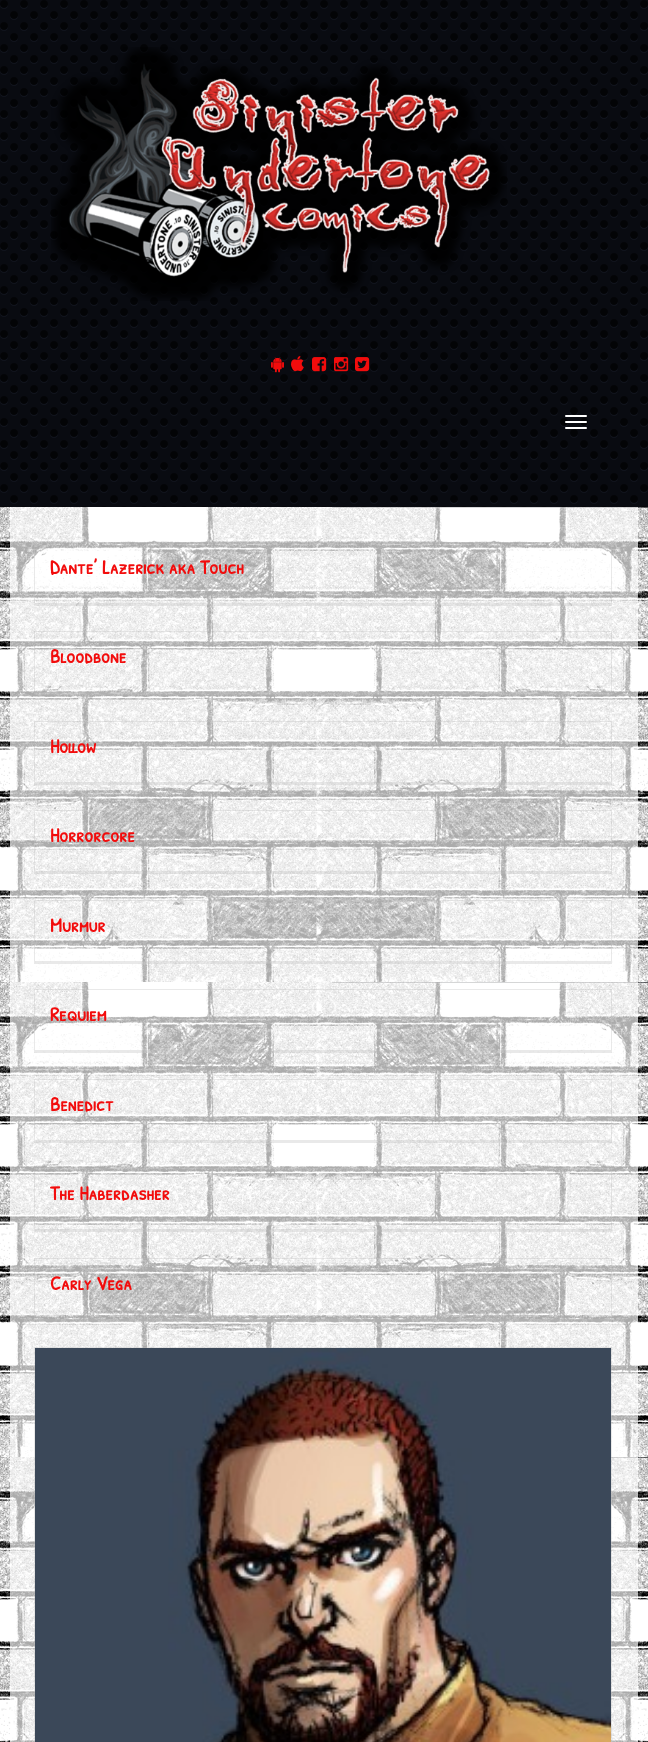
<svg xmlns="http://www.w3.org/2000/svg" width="648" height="1742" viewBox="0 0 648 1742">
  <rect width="100%" height="100%" fill="#10131c"/>
  <image x="0" y="0" width="648" height="1458" href="img1.png"/>
  <image x="51" y="47" width="456" height="254" href="img2.png"/>
  <image x="271" y="357" width="13" height="16" href="img3.png"/>
  <image x="291" y="355" width="13" height="17" href="img4.png"/>
  <image x="312" y="357" width="15" height="15" href="img5.png"/>
  <image x="334" y="357" width="15" height="15" href="img6.png"/>
  <image x="355" y="357" width="15" height="15" href="img7.png"/>
  <rect x="565" y="415" width="22" height="2" rx="1" fill="#ffffff"/>
  <rect x="565" y="421" width="22" height="2" rx="1" fill="#ffffff"/>
  <rect x="565" y="427" width="22" height="2" rx="1" fill="#ffffff"/>
  <image x="0" y="507" width="648" height="1235" href="img8.png"/>
  <rect x="10" y="507" width="628" height="1235" fill="#ffffff" fill-opacity="0.67"/>
  <path d="M34 542H612L611 543H35Z" fill="#bdbdbd" fill-opacity="0.33"/>
  <path d="M612 542V606L611 603V543Z" fill="#bdbdbd" fill-opacity="0.33"/>
  <path d="M612 606H34L35 603H611Z" fill="#bdbdbd" fill-opacity="0.33"/>
  <path d="M34 606V542L35 543V603Z" fill="#bdbdbd" fill-opacity="0.33"/>
  <text x="50" y="574" font-family="Patrick Hand SC" font-size="20" font-weight="bold" fill="#f20c0c">Dante’ Lazerick aka Touch</text>
  <path d="M34 631H612L611 632H35Z" fill="#bdbdbd" fill-opacity="0.33"/>
  <path d="M612 631V695L611 692V632Z" fill="#bdbdbd" fill-opacity="0.33"/>
  <path d="M612 695H34L35 692H611Z" fill="#bdbdbd" fill-opacity="0.33"/>
  <path d="M34 695V631L35 632V692Z" fill="#bdbdbd" fill-opacity="0.33"/>
  <text x="50" y="663" font-family="Patrick Hand SC" font-size="20" font-weight="bold" fill="#f20c0c">Bloodbone</text>
  <path d="M34 721H612L611 722H35Z" fill="#bdbdbd" fill-opacity="0.33"/>
  <path d="M612 721V785L611 782V722Z" fill="#bdbdbd" fill-opacity="0.33"/>
  <path d="M612 785H34L35 782H611Z" fill="#bdbdbd" fill-opacity="0.33"/>
  <path d="M34 785V721L35 722V782Z" fill="#bdbdbd" fill-opacity="0.33"/>
  <text x="50" y="753" font-family="Patrick Hand SC" font-size="20" font-weight="bold" fill="#f20c0c">Hollow</text>
  <path d="M34 810H612L611 811H35Z" fill="#bdbdbd" fill-opacity="0.33"/>
  <path d="M612 810V874L611 871V811Z" fill="#bdbdbd" fill-opacity="0.33"/>
  <path d="M612 874H34L35 871H611Z" fill="#bdbdbd" fill-opacity="0.33"/>
  <path d="M34 874V810L35 811V871Z" fill="#bdbdbd" fill-opacity="0.33"/>
  <text x="50" y="842" font-family="Patrick Hand SC" font-size="20" font-weight="bold" fill="#f20c0c">Horrorcore</text>
  <path d="M34 900H612L611 901H35Z" fill="#bdbdbd" fill-opacity="0.33"/>
  <path d="M612 900V964L611 961V901Z" fill="#bdbdbd" fill-opacity="0.33"/>
  <path d="M612 964H34L35 961H611Z" fill="#bdbdbd" fill-opacity="0.33"/>
  <path d="M34 964V900L35 901V961Z" fill="#bdbdbd" fill-opacity="0.33"/>
  <text x="50" y="932" font-family="Patrick Hand SC" font-size="20" font-weight="bold" fill="#f20c0c">Murmur</text>
  <path d="M34 989H612L611 990H35Z" fill="#bdbdbd" fill-opacity="0.33"/>
  <path d="M612 989V1053L611 1050V990Z" fill="#bdbdbd" fill-opacity="0.33"/>
  <path d="M612 1053H34L35 1050H611Z" fill="#bdbdbd" fill-opacity="0.33"/>
  <path d="M34 1053V989L35 990V1050Z" fill="#bdbdbd" fill-opacity="0.33"/>
  <text x="50" y="1021" font-family="Patrick Hand SC" font-size="20" font-weight="bold" fill="#f20c0c">Requiem</text>
  <path d="M34 1079H612L611 1080H35Z" fill="#bdbdbd" fill-opacity="0.33"/>
  <path d="M612 1079V1143L611 1140V1080Z" fill="#bdbdbd" fill-opacity="0.33"/>
  <path d="M612 1143H34L35 1140H611Z" fill="#bdbdbd" fill-opacity="0.33"/>
  <path d="M34 1143V1079L35 1080V1140Z" fill="#bdbdbd" fill-opacity="0.33"/>
  <text x="50" y="1111" font-family="Patrick Hand SC" font-size="20" font-weight="bold" fill="#f20c0c">Benedict</text>
  <path d="M34 1168H612L611 1169H35Z" fill="#bdbdbd" fill-opacity="0.33"/>
  <path d="M612 1168V1232L611 1229V1169Z" fill="#bdbdbd" fill-opacity="0.33"/>
  <path d="M612 1232H34L35 1229H611Z" fill="#bdbdbd" fill-opacity="0.33"/>
  <path d="M34 1232V1168L35 1169V1229Z" fill="#bdbdbd" fill-opacity="0.33"/>
  <text x="50" y="1200" font-family="Patrick Hand SC" font-size="20" font-weight="bold" fill="#f20c0c">The Haberdasher</text>
  <path d="M34 1258H612L611 1259H35Z" fill="#bdbdbd" fill-opacity="0.33"/>
  <path d="M612 1258V1322L611 1319V1259Z" fill="#bdbdbd" fill-opacity="0.33"/>
  <path d="M612 1322H34L35 1319H611Z" fill="#bdbdbd" fill-opacity="0.33"/>
  <path d="M34 1322V1258L35 1259V1319Z" fill="#bdbdbd" fill-opacity="0.33"/>
  <text x="50" y="1290" font-family="Patrick Hand SC" font-size="20" font-weight="bold" fill="#f20c0c">Carly Vega</text>
  <path d="M34 1347H612L611 1348H35Z" fill="#bdbdbd" fill-opacity="0.33"/>
  <path d="M612 1347V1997L611 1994V1348Z" fill="#bdbdbd" fill-opacity="0.33"/>
  <path d="M34 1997V1347L35 1348V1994Z" fill="#bdbdbd" fill-opacity="0.33"/>
  <image x="35" y="1348" width="576" height="394" href="img9.png"/>
</svg>
